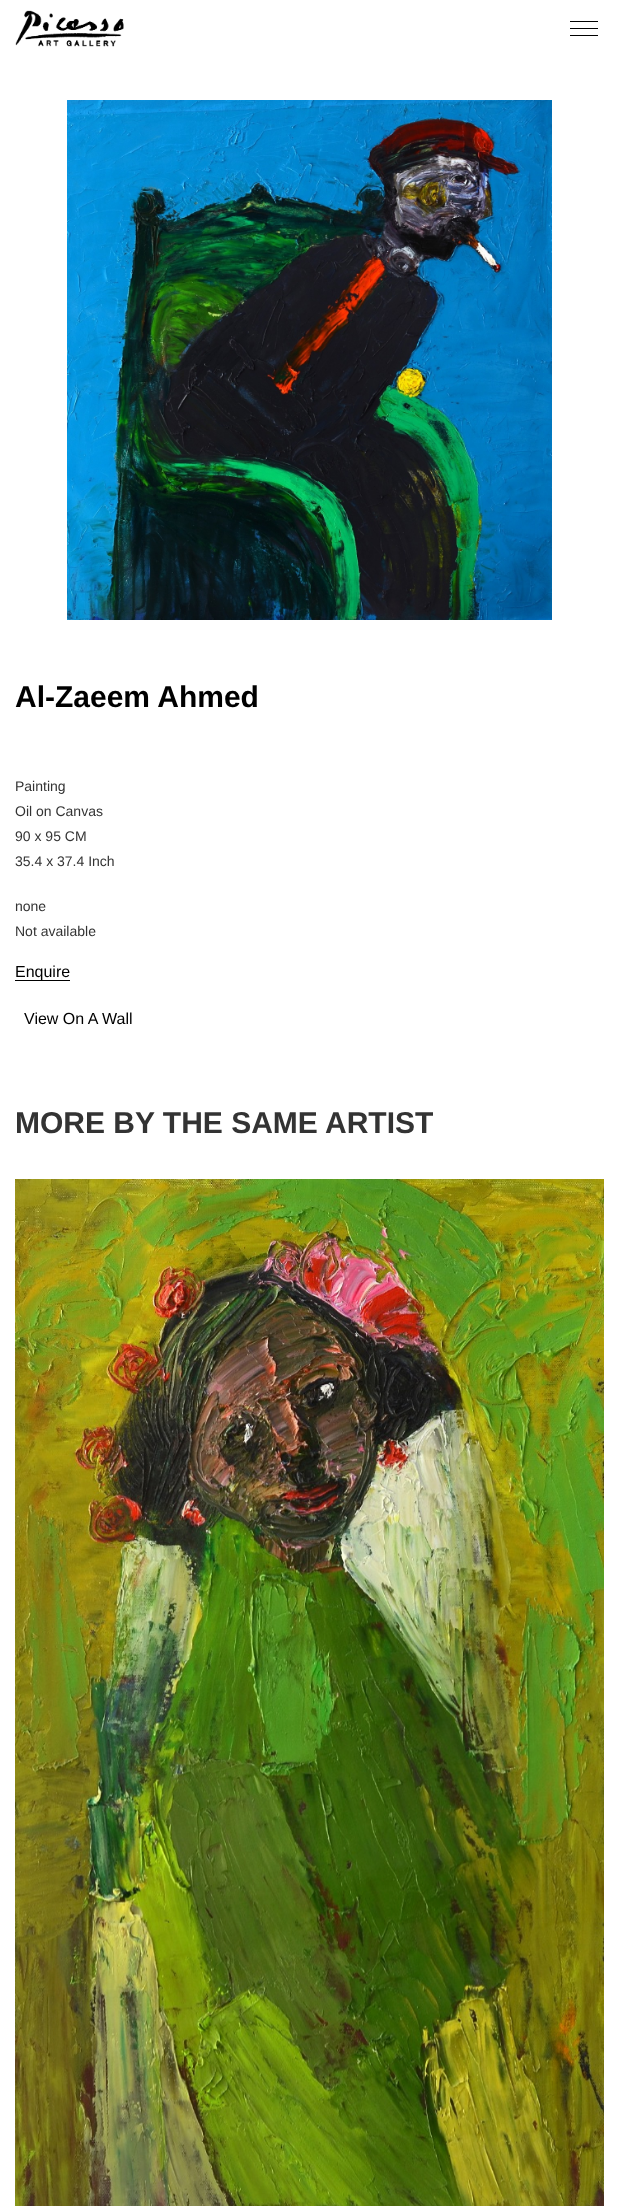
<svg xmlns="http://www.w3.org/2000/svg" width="619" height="2206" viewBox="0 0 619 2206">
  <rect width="100%" height="100%" fill="#ffffff"/>
  <image x="15" y="10" width="109" height="37" href="img1.png"/>
  <rect x="570" y="21" width="28" height="1" fill="#000000"/>
  <rect x="570" y="28" width="28" height="1" fill="#000000"/>
  <rect x="570" y="35" width="28" height="1" fill="#000000"/>
  <image x="67" y="100" width="485" height="520" href="img2.png"/>
  <text x="15" y="707" font-family="Liberation Sans" font-size="30" font-weight="bold" fill="#000000">Al-Zaeem Ahmed</text>
  <text x="15" y="791" font-family="Liberation Sans" font-size="14" fill="#333333">Painting</text>
  <text x="15" y="816" font-family="Liberation Sans" font-size="14" fill="#333333">Oil on Canvas</text>
  <text x="15" y="841" font-family="Liberation Sans" font-size="14" fill="#333333">90 x 95 CM</text>
  <text x="15" y="866" font-family="Liberation Sans" font-size="14" fill="#333333">35.4 x 37.4 Inch</text>
  <text x="15" y="911" font-family="Liberation Sans" font-size="14" fill="#333333">none</text>
  <text x="15" y="936" font-family="Liberation Sans" font-size="14" fill="#333333">Not available</text>
  <rect x="15" y="980" width="55" height="1" fill="#000000"/>
  <text x="15" y="977" font-family="Liberation Sans" font-size="16" fill="#000000">Enquire</text>
  <text x="24" y="1024" font-family="Liberation Sans" font-size="16" fill="#000000">View On A Wall</text>
  <text x="15" y="1133" font-family="Liberation Sans" font-size="30" font-weight="bold" fill="#333333">MORE BY THE SAME ARTIST</text>
  <image x="15" y="1179" width="589" height="1027" href="img3.png"/>
</svg>
